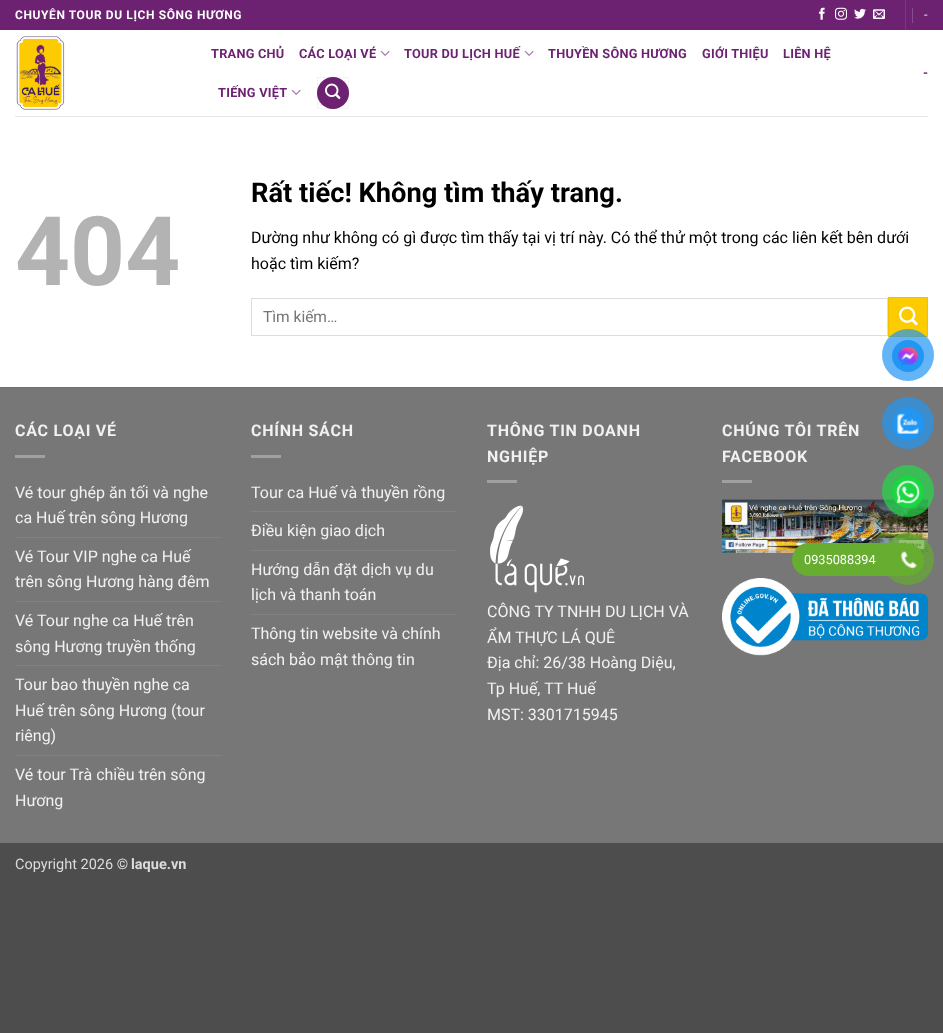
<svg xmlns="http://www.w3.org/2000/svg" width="943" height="1033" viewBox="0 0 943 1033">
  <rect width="100%" height="100%" fill="#4d4d4d"/>
  <rect x="0" y="30" width="943" height="357" fill="#ffffff"/>
  <rect x="0" y="0" width="943" height="30" fill="#6c2171"/>
  <text x="15" y="19" font-family="Roboto" font-size="12" font-weight="bold" letter-spacing="0.6" fill="#ffffff">CHUYÊN TOUR DU LỊCH SÔNG HƯƠNG</text>
  <image x="819" y="7" width="6" height="13" href="img1.png"/>
  <image x="835" y="7" width="12" height="13" href="img2.png"/>
  <image x="854" y="8" width="12" height="11" href="img3.png"/>
  <image x="873" y="9" width="12" height="10" href="img4.png"/>
  <rect x="905" y="0" width="1" height="30" fill="#7b377f"/>
  <rect x="912" y="8" width="1" height="15" fill="#894d8d"/>
  <text x="924" y="19" font-family="Roboto" font-size="12.75" fill="#e2d3e3">-</text>
  <image x="16" y="36" width="49" height="74" href="img5.png"/>
  <text x="211" y="58" font-family="Roboto" font-size="12.75" font-weight="bold" letter-spacing="0.25" fill="#6c2171">TRANG CHỦ</text>
  <text x="299" y="58" font-family="Roboto" font-size="12.75" font-weight="bold" letter-spacing="0.25" fill="#6c2171">CÁC LOẠI VÉ</text>
  <image x="380" y="50" width="10" height="6" href="img6.png"/>
  <text x="404" y="58" font-family="Roboto" font-size="12.75" font-weight="bold" letter-spacing="0.25" fill="#6c2171">TOUR DU LỊCH HUẾ</text>
  <image x="524" y="50" width="10" height="6" href="img6.png"/>
  <text x="548" y="58" font-family="Roboto" font-size="12.75" font-weight="bold" letter-spacing="0.25" fill="#6c2171">THUYỀN SÔNG HƯƠNG</text>
  <text x="702" y="58" font-family="Roboto" font-size="12.75" font-weight="bold" letter-spacing="0.25" fill="#6c2171">GIỚI THIỆU</text>
  <text x="783" y="58" font-family="Roboto" font-size="12.75" font-weight="bold" letter-spacing="0.25" fill="#6c2171">LIÊN HỆ</text>
  <text x="218" y="97" font-family="Roboto" font-size="12.75" font-weight="bold" letter-spacing="0.25" fill="#6c2171">TIẾNG VIỆT</text>
  <image x="291" y="89" width="10" height="6" href="img6.png"/>
  <circle cx="333" cy="93" r="16" fill="#6c2171"/>
  <rect x="317.5" y="77.5" width="31" height="31" fill="none" stroke="#000000" stroke-opacity="0.05"/>
  <image x="325" y="83" width="16" height="16" href="img7.png"/>
  <text x="923" y="77" font-family="Roboto" font-size="12.75" font-weight="bold" letter-spacing="0.25" fill="#6c2171">-</text>
  <rect x="15" y="116" width="913" height="1" fill="#e6e6e6"/>
  <text x="15" y="285" font-family="Roboto" font-size="96" font-weight="bold" fill="#b3b3b3">404</text>
  <text x="251" y="202" font-family="Roboto" font-size="27.25" font-weight="bold" fill="#000000">Rất tiếc! Không tìm thấy trang.</text>
  <text x="251" y="243" font-family="Roboto" font-size="16" fill="#000000">Dường như không có gì được tìm thấy tại vị trí này. Có thể thử một trong các liên kết bên dưới</text>
  <text x="251" y="269" font-family="Roboto" font-size="16" fill="#000000">hoặc tìm kiếm?</text>
  <rect x="251.5" y="298.5" width="636" height="37" fill="none" stroke="#dddddd"/>
  <text x="263" y="322" font-family="Roboto" font-size="15.5" fill="#757575">Tìm kiếm…</text>
  <rect x="888.5" y="297.5" width="39" height="39" fill="#fccb00" stroke="#efc100"/>
  <image x="899" y="306" width="19" height="20" href="img8.png"/>
  <rect x="0" y="388" width="943" height="455" fill="#777777"/>
  <rect x="0" y="387" width="943" height="1" fill="#717171"/>
  <text x="15" y="436" font-family="Roboto" font-size="16" font-weight="bold" letter-spacing="0.75" fill="#f1f1f1">CÁC LOẠI VÉ</text>
  <rect x="15" y="455" width="30" height="3" fill="#a0a0a0"/>
  <text x="15" y="498" font-family="Roboto" font-size="16" fill="#f1f1f1">Vé tour ghép ăn tối và nghe</text>
  <text x="15" y="523" font-family="Roboto" font-size="16" fill="#f1f1f1">ca Huế trên sông Hương</text>
  <rect x="15" y="537" width="206" height="1" fill="#828282"/>
  <text x="15" y="562" font-family="Roboto" font-size="16" fill="#f1f1f1">Vé Tour VIP nghe ca Huế</text>
  <text x="15" y="587" font-family="Roboto" font-size="16" fill="#f1f1f1">trên sông Hương hàng đêm</text>
  <rect x="15" y="601" width="206" height="1" fill="#828282"/>
  <text x="15" y="626" font-family="Roboto" font-size="16" fill="#f1f1f1">Vé Tour nghe ca Huế trên</text>
  <text x="15" y="652" font-family="Roboto" font-size="16" fill="#f1f1f1">sông Hương truyền thống</text>
  <rect x="15" y="665" width="206" height="1" fill="#828282"/>
  <text x="15" y="690" font-family="Roboto" font-size="16" fill="#f1f1f1">Tour bao thuyền nghe ca</text>
  <text x="15" y="716" font-family="Roboto" font-size="16" fill="#f1f1f1">Huế trên sông Hương (tour</text>
  <text x="15" y="741" font-family="Roboto" font-size="16" fill="#f1f1f1">riêng)</text>
  <rect x="15" y="755" width="206" height="1" fill="#828282"/>
  <text x="15" y="780" font-family="Roboto" font-size="16" fill="#f1f1f1">Vé tour Trà chiều trên sông</text>
  <text x="15" y="806" font-family="Roboto" font-size="16" fill="#f1f1f1">Hương</text>
  <text x="251" y="436" font-family="Roboto" font-size="16" font-weight="bold" letter-spacing="0.75" fill="#f1f1f1">CHÍNH SÁCH</text>
  <rect x="251" y="455" width="30" height="3" fill="#a0a0a0"/>
  <text x="251" y="498" font-family="Roboto" font-size="16" fill="#f1f1f1">Tour ca Huế và thuyền rồng</text>
  <rect x="251" y="511" width="206" height="1" fill="#828282"/>
  <text x="251" y="536" font-family="Roboto" font-size="16" fill="#f1f1f1">Điều kiện giao dịch</text>
  <rect x="251" y="550" width="206" height="1" fill="#828282"/>
  <text x="251" y="575" font-family="Roboto" font-size="16" fill="#f1f1f1">Hướng dẫn đặt dịch vụ du</text>
  <text x="251" y="600" font-family="Roboto" font-size="16" fill="#f1f1f1">lịch và thanh toán</text>
  <rect x="251" y="614" width="206" height="1" fill="#828282"/>
  <text x="251" y="639" font-family="Roboto" font-size="16" fill="#f1f1f1">Thông tin website và chính</text>
  <text x="251" y="665" font-family="Roboto" font-size="16" fill="#f1f1f1">sách bảo mật thông tin</text>
  <text x="487" y="436" font-family="Roboto" font-size="16" font-weight="bold" letter-spacing="0.75" fill="#f1f1f1">THÔNG TIN DOANH</text>
  <text x="487" y="462" font-family="Roboto" font-size="16" font-weight="bold" letter-spacing="0.75" fill="#f1f1f1">NGHIỆP</text>
  <rect x="487" y="480" width="30" height="3" fill="#a0a0a0"/>
  <image x="490" y="505" width="94" height="88" href="img9.png"/>
  <text x="487" y="617" font-family="Roboto" font-size="16" fill="#f1f1f1">CÔNG TY TNHH DU LỊCH VÀ</text>
  <text x="487" y="643" font-family="Roboto" font-size="16" fill="#f1f1f1">ẨM THỰC LÁ QUÊ</text>
  <text x="487" y="668" font-family="Roboto" font-size="16" fill="#f1f1f1">Địa chỉ: 26/38 Hoàng Diệu,</text>
  <text x="487" y="694" font-family="Roboto" font-size="16" fill="#f1f1f1">Tp Huế, TT Huế</text>
  <text x="487" y="720" font-family="Roboto" font-size="16" fill="#f1f1f1">MST: 3301715945</text>
  <text x="722" y="436" font-family="Roboto" font-size="16" font-weight="bold" letter-spacing="0.75" fill="#f1f1f1">CHÚNG TÔI TRÊN</text>
  <text x="722" y="462" font-family="Roboto" font-size="16" font-weight="bold" letter-spacing="0.75" fill="#f1f1f1">FACEBOOK</text>
  <rect x="722" y="480" width="30" height="3" fill="#a0a0a0"/>
  <image x="722" y="499" width="206" height="54" href="img10.png"/>
  <image x="722" y="578" width="206" height="78" href="img11.png"/>
  <text x="15" y="869" font-family="Roboto" font-size="14.5" fill="#dbdbdb">Copyright 2026 ©</text>
  <text x="131" y="869" font-family="Roboto" font-size="14.5" font-weight="bold" fill="#dbdbdb">laque.vn</text>
  <circle cx="908" cy="355" r="26" fill="#2196f3" fill-opacity="0.7"/>
  <circle cx="908" cy="356" r="16" fill="#2196f3"/>
  <image x="897" y="346" width="22" height="20" href="img12.png"/>
  <circle cx="908" cy="423" r="26" fill="#3b8dce"/>
  <circle cx="908" cy="424" r="16" fill="#2196f3"/>
  <image x="897" y="413" width="22" height="21" href="img13.png"/>
  <circle cx="908" cy="491" r="26" fill="#23d948" fill-opacity="0.7"/>
  <circle cx="908" cy="492" r="16" fill="#1cd741"/>
  <image x="892" y="476" width="32" height="32" href="img14.png"/>
  <rect x="792" y="543" width="128" height="33" rx="16.5" fill="#67ad30"/>
  <text x="804" y="564" font-family="Roboto" font-size="12.75" fill="#ffffff">0935088394</text>
  <circle cx="908" cy="559" r="26" fill="#67ad30" fill-opacity="0.7"/>
  <circle cx="908" cy="560" r="16" fill="#67ad30"/>
  <image x="900" y="551" width="18" height="18" href="img15.png"/>
</svg>
